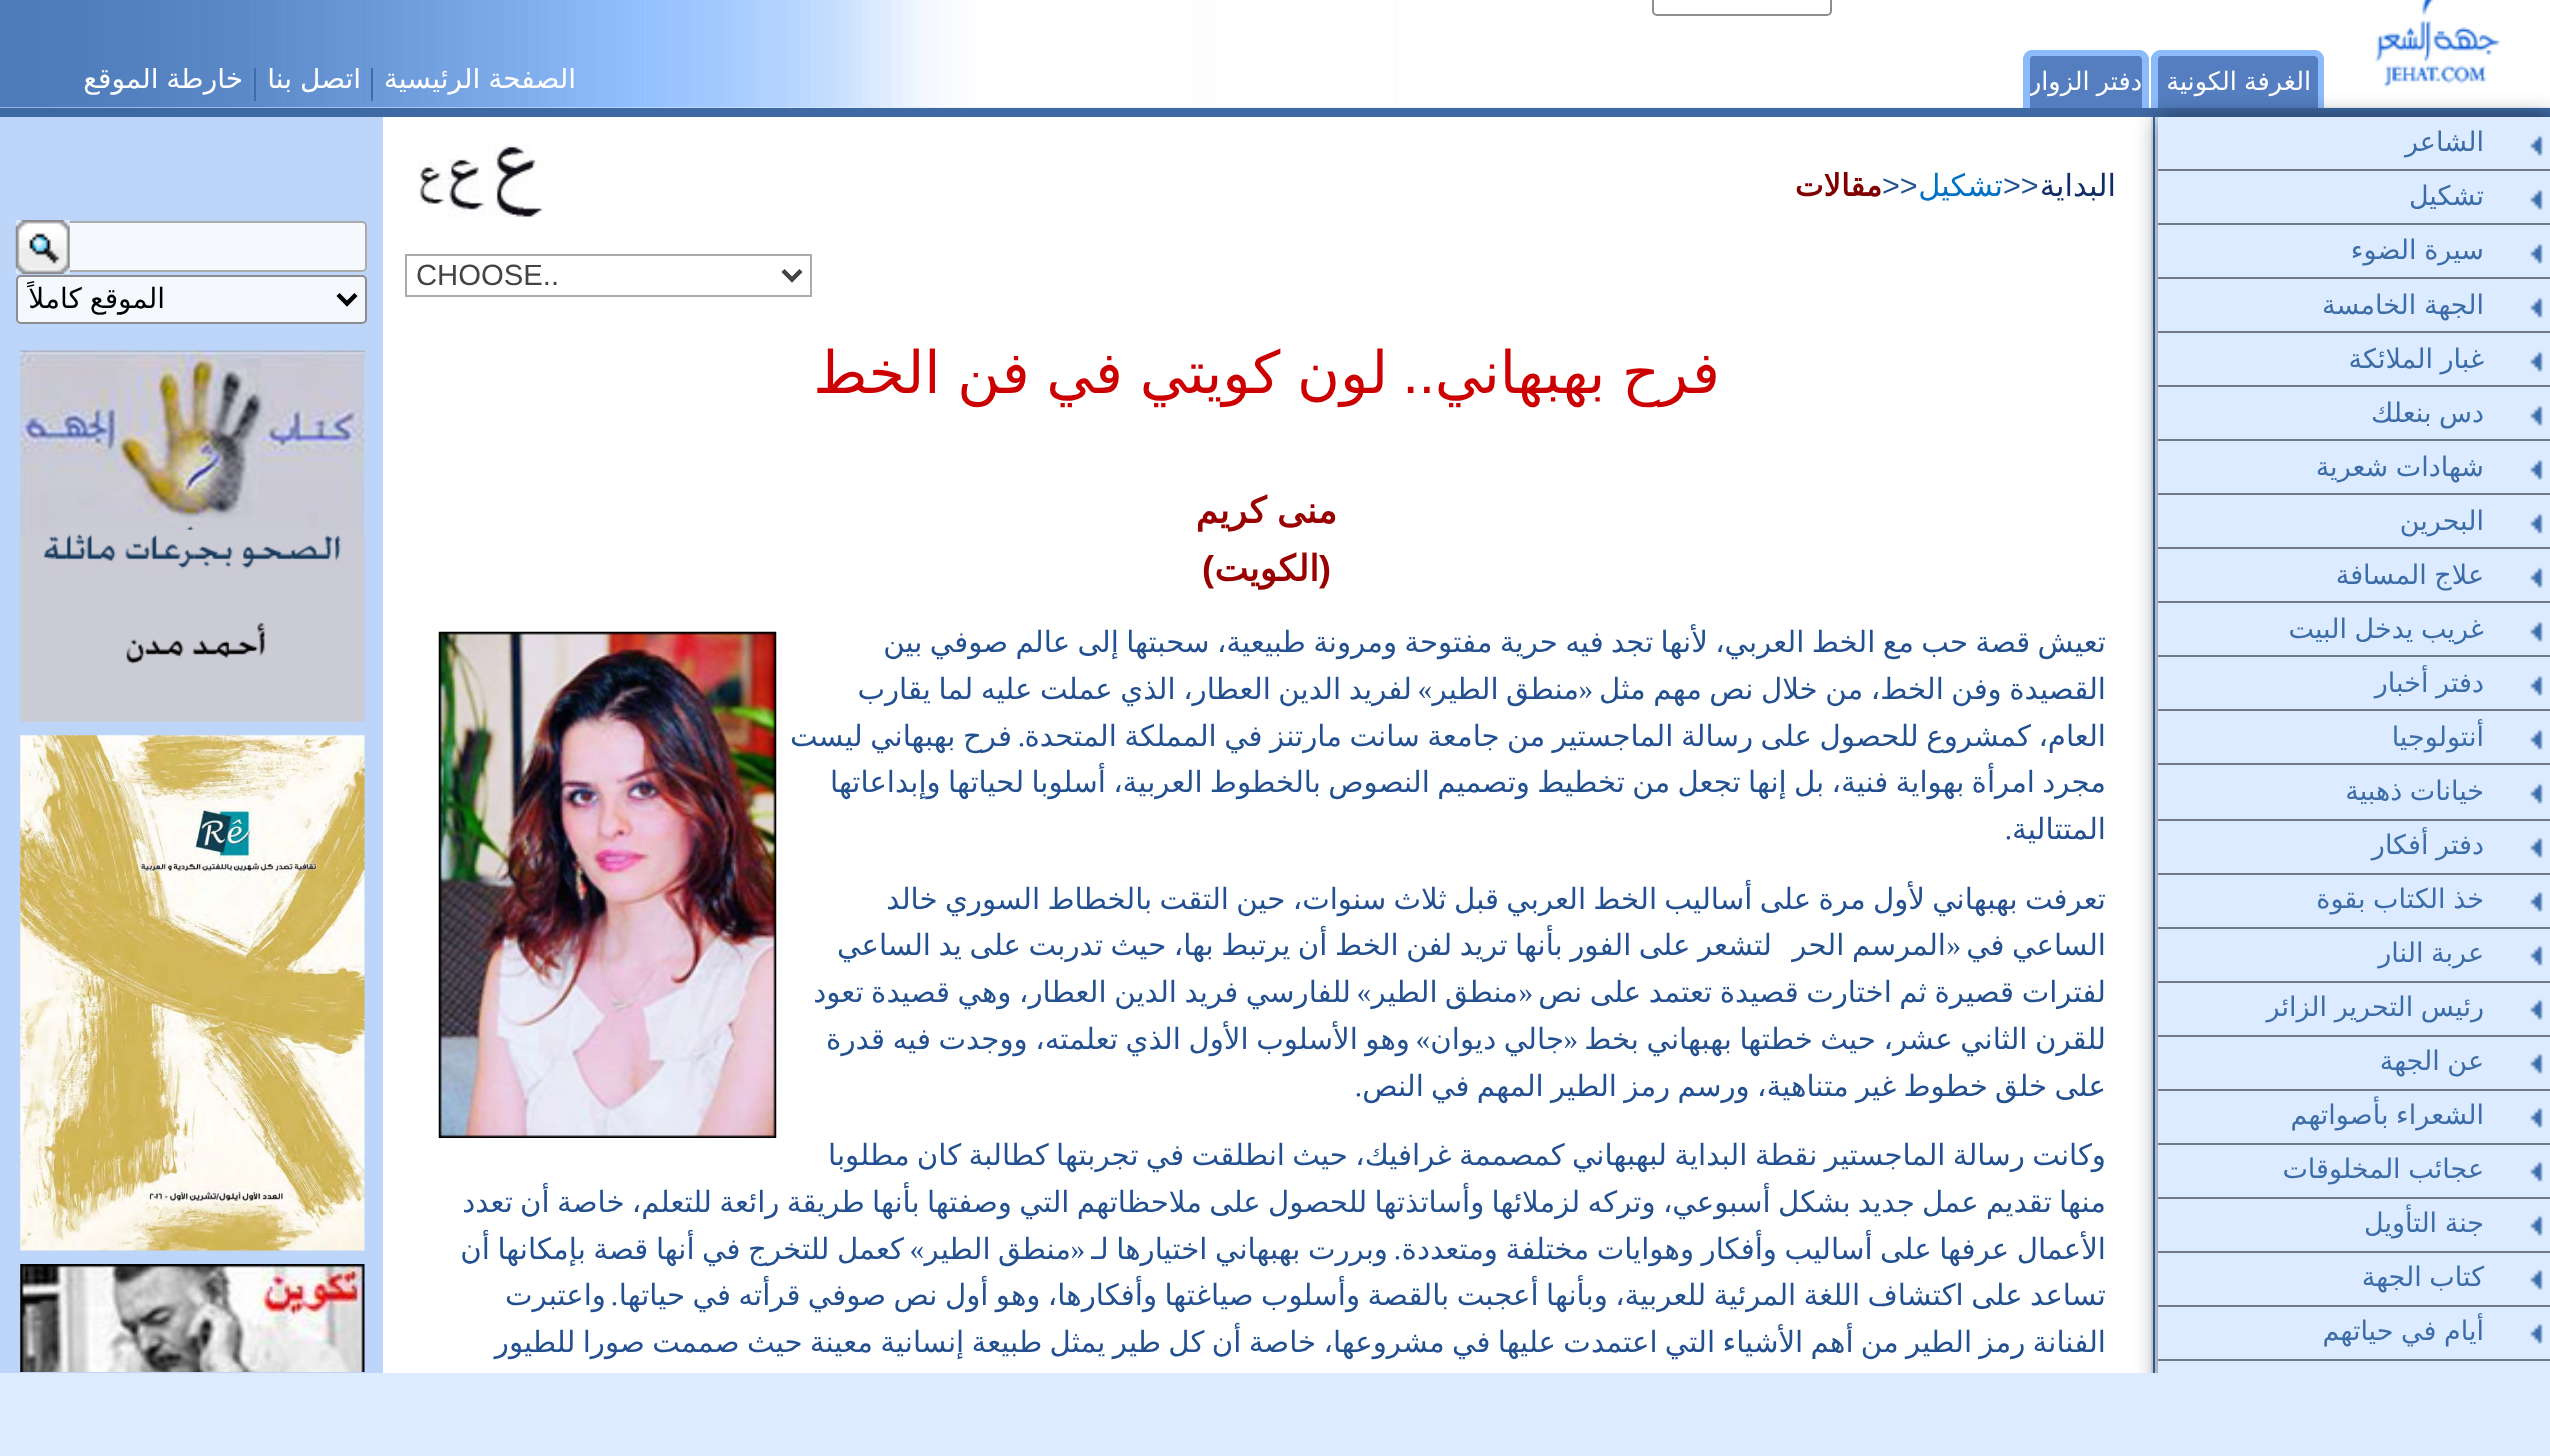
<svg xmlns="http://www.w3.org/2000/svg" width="2550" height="1456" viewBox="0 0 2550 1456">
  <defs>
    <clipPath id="clip1"><path d="M2033 56H2139C2140.5 56 2142 57.5 2142 59V108H2030V59C2030 57.5 2031.5 56 2033 56Z"/></clipPath>
    <clipPath id="clip2"><rect x="374" y="68" width="213" height="33"/></clipPath>
    <clipPath id="clip3"><rect x="257" y="68" width="114" height="33"/></clipPath>
    <clipPath id="clip4"><rect x="72" y="68" width="182" height="33"/></clipPath>
    <clipPath id="clip5"><rect x="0" y="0" width="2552" height="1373"/></clipPath>
    <clipPath id="clip6"><path d="M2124 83H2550V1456H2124ZM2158 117H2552V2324H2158Z" clip-rule="evenodd"/></clipPath>
    <filter id="blur1" x="-50%" y="-200%" width="200%" height="500%"><feGaussianBlur stdDeviation="11"/></filter>
    <clipPath id="clip7"><rect x="27" y="281" width="302" height="36"/></clipPath>
  </defs>
  <rect width="100%" height="100%" fill="#dcebff"/>
  <image x="0" y="0" width="2550" height="108" href="img1.png"/>
  <image x="2374" y="0" width="127" height="88" href="img2.png"/>
  <path d="M2162 50H2313C2319 50 2324 55 2324 61V108H2151V61C2151 55 2156 50 2162 50Z" fill="#547ec0"/>
  <path d="M2161 50H2314C2320 50 2324 54 2324 60V108H2151V60C2151 54 2156 50 2161 50ZM2161 56H2314C2316 56 2318 58 2318 60V108H2158V60C2158 58 2159 56 2161 56Z" fill="#8bbbfb" fill-rule="evenodd"/>
  <text x="2311" y="90" word-spacing="-1" font-family="DejaVu Sans" font-size="25.5" direction="rtl" fill="#ffffff">الغرفة الكونية</text>
  <path d="M2034 50H2138C2144 50 2149 55 2149 61V108H2023V61C2023 55 2028 50 2034 50Z" fill="#547ec0"/>
  <path d="M2033 50H2139C2144 50 2149 54 2149 60V108H2023V60C2023 54 2027 50 2033 50ZM2033 56H2139C2140 56 2142 58 2142 60V108H2030V60C2030 58 2031 56 2033 56Z" fill="#8bbbfb" fill-rule="evenodd"/>
  <g clip-path="url(#clip1)">
    <text x="2142" y="90" word-spacing="-1" font-family="DejaVu Sans" font-size="25.5" direction="rtl" fill="#ffffff">دفتر الزوار</text>
  </g>
  <rect x="1653" y="-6" width="178" height="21" rx="4" fill="none" stroke="#8d8d8f" stroke-width="2"/>
  <rect x="371" y="68" width="2" height="33" fill="#3d6caa"/>
  <g clip-path="url(#clip2)">
    <text x="576" y="88" word-spacing="-1" font-family="DejaVu Sans" font-size="28" direction="rtl" fill="#ffffff">الصفحة الرئيسية</text>
  </g>
  <rect x="254" y="68" width="2" height="33" fill="#3d6caa"/>
  <g clip-path="url(#clip3)">
    <text x="361" y="88" word-spacing="-1" font-family="DejaVu Sans" font-size="28" direction="rtl" fill="#ffffff">اتصل بنا</text>
  </g>
  <g clip-path="url(#clip4)">
    <text x="243" y="88" word-spacing="-1" font-family="DejaVu Sans" font-size="28" direction="rtl" fill="#ffffff">خارطة الموقع</text>
  </g>
  <rect x="0" y="108" width="2550" height="9" fill="#3f69a3"/>
  <rect x="2153" y="117" width="2" height="1256" fill="#3f69a3"/>
  <rect x="383" y="117" width="1768" height="1256" fill="#ffffff"/>
  <g clip-path="url(#clip5)">
    <g clip-path="url(#clip6)">
      <rect x="2158" y="117" width="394" height="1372" fill="#000000" fill-opacity="0.5" filter="url(#blur1)"/>
    </g>
  </g>
  <image x="2530" y="135" width="13" height="21" href="img3.png"/>
  <rect x="2158" y="169" width="392" height="2" fill="#727a87"/>
  <text x="2484" y="151" font-family="DejaVu Sans" font-size="27" direction="rtl" fill="#3c6da8">الشاعر</text>
  <image x="2530" y="189" width="13" height="21" href="img3.png"/>
  <rect x="2158" y="223" width="392" height="2" fill="#727a87"/>
  <text x="2484" y="205" font-family="DejaVu Sans" font-size="27" direction="rtl" fill="#3c6da8">تشكيل</text>
  <image x="2530" y="243" width="13" height="21" href="img3.png"/>
  <rect x="2158" y="277" width="392" height="2" fill="#727a87"/>
  <text x="2484" y="259" word-spacing="-1" font-family="DejaVu Sans" font-size="27" direction="rtl" fill="#3c6da8">سيرة الضوء</text>
  <image x="2530" y="297" width="13" height="21" href="img3.png"/>
  <rect x="2158" y="331" width="392" height="2" fill="#727a87"/>
  <text x="2484" y="314" word-spacing="-1" font-family="DejaVu Sans" font-size="27" direction="rtl" fill="#3c6da8">الجهة الخامسة</text>
  <image x="2530" y="351" width="13" height="21" href="img3.png"/>
  <rect x="2158" y="385" width="392" height="2" fill="#727a87"/>
  <text x="2484" y="368" word-spacing="-1" font-family="DejaVu Sans" font-size="27" direction="rtl" fill="#3c6da8">غبار الملائكة</text>
  <image x="2530" y="405" width="13" height="21" href="img3.png"/>
  <rect x="2158" y="439" width="392" height="2" fill="#727a87"/>
  <text x="2484" y="422" word-spacing="-1" font-family="DejaVu Sans" font-size="27" direction="rtl" fill="#3c6da8">دس بنعلك</text>
  <image x="2530" y="459" width="13" height="21" href="img3.png"/>
  <rect x="2158" y="493" width="392" height="2" fill="#727a87"/>
  <text x="2484" y="476" word-spacing="-1" font-family="DejaVu Sans" font-size="27" direction="rtl" fill="#3c6da8">شهادات شعرية</text>
  <image x="2530" y="513" width="13" height="21" href="img3.png"/>
  <rect x="2158" y="547" width="392" height="2" fill="#727a87"/>
  <text x="2484" y="530" font-family="DejaVu Sans" font-size="27" direction="rtl" fill="#3c6da8">البحرين</text>
  <image x="2530" y="567" width="13" height="21" href="img3.png"/>
  <rect x="2158" y="601" width="392" height="2" fill="#727a87"/>
  <text x="2484" y="584" word-spacing="-1" font-family="DejaVu Sans" font-size="27" direction="rtl" fill="#3c6da8">علاج المسافة</text>
  <image x="2530" y="621" width="13" height="21" href="img3.png"/>
  <rect x="2158" y="655" width="392" height="2" fill="#727a87"/>
  <text x="2484" y="638" word-spacing="-1" font-family="DejaVu Sans" font-size="27" direction="rtl" fill="#3c6da8">غريب يدخل البيت</text>
  <image x="2530" y="675" width="13" height="21" href="img3.png"/>
  <rect x="2158" y="709" width="392" height="2" fill="#727a87"/>
  <text x="2484" y="692" word-spacing="-1" font-family="DejaVu Sans" font-size="27" direction="rtl" fill="#3c6da8">دفتر أخبار</text>
  <image x="2530" y="729" width="13" height="21" href="img3.png"/>
  <rect x="2158" y="763" width="392" height="2" fill="#727a87"/>
  <text x="2484" y="746" font-family="DejaVu Sans" font-size="27" direction="rtl" fill="#3c6da8">أنتولوجيا</text>
  <image x="2530" y="783" width="13" height="21" href="img3.png"/>
  <rect x="2158" y="819" width="392" height="2" fill="#727a87"/>
  <text x="2484" y="800" word-spacing="-1" font-family="DejaVu Sans" font-size="27" direction="rtl" fill="#3c6da8">خيانات ذهبية</text>
  <image x="2530" y="837" width="13" height="21" href="img3.png"/>
  <rect x="2158" y="873" width="392" height="2" fill="#727a87"/>
  <text x="2484" y="854" word-spacing="-1" font-family="DejaVu Sans" font-size="27" direction="rtl" fill="#3c6da8">دفتر أفكار</text>
  <image x="2530" y="891" width="13" height="21" href="img4.png"/>
  <rect x="2158" y="927" width="392" height="2" fill="#727a87"/>
  <text x="2484" y="908" word-spacing="-1" font-family="DejaVu Sans" font-size="27" direction="rtl" fill="#3c6da8">خذ الكتاب بقوة</text>
  <image x="2530" y="945" width="13" height="21" href="img3.png"/>
  <rect x="2158" y="981" width="392" height="2" fill="#727a87"/>
  <text x="2484" y="962" word-spacing="-1" font-family="DejaVu Sans" font-size="27" direction="rtl" fill="#3c6da8">عربة النار</text>
  <image x="2530" y="999" width="13" height="21" href="img3.png"/>
  <rect x="2158" y="1035" width="392" height="2" fill="#727a87"/>
  <text x="2484" y="1016" word-spacing="-1" font-family="DejaVu Sans" font-size="27" direction="rtl" fill="#3c6da8">رئيس التحرير الزائر</text>
  <image x="2530" y="1053" width="13" height="21" href="img3.png"/>
  <rect x="2158" y="1089" width="392" height="2" fill="#727a87"/>
  <text x="2484" y="1070" word-spacing="-1" font-family="DejaVu Sans" font-size="27" direction="rtl" fill="#3c6da8">عن الجهة</text>
  <image x="2530" y="1107" width="13" height="21" href="img3.png"/>
  <rect x="2158" y="1143" width="392" height="2" fill="#727a87"/>
  <text x="2484" y="1124" word-spacing="-1" font-family="DejaVu Sans" font-size="27" direction="rtl" fill="#3c6da8">الشعراء بأصواتهم</text>
  <image x="2530" y="1161" width="13" height="21" href="img3.png"/>
  <rect x="2158" y="1197" width="392" height="2" fill="#727a87"/>
  <text x="2484" y="1178" word-spacing="-1" font-family="DejaVu Sans" font-size="27" direction="rtl" fill="#3c6da8">عجائب المخلوقات</text>
  <image x="2530" y="1215" width="13" height="21" href="img3.png"/>
  <rect x="2158" y="1251" width="392" height="2" fill="#727a87"/>
  <text x="2484" y="1232" word-spacing="-1" font-family="DejaVu Sans" font-size="27" direction="rtl" fill="#3c6da8">جنة التأويل</text>
  <image x="2530" y="1269" width="13" height="21" href="img3.png"/>
  <rect x="2158" y="1305" width="392" height="2" fill="#727a87"/>
  <text x="2484" y="1286" word-spacing="-1" font-family="DejaVu Sans" font-size="27" direction="rtl" fill="#3c6da8">كتاب الجهة</text>
  <image x="2530" y="1323" width="13" height="21" href="img3.png"/>
  <rect x="2158" y="1359" width="392" height="2" fill="#727a87"/>
  <text x="2484" y="1340" word-spacing="-1" font-family="DejaVu Sans" font-size="27" direction="rtl" fill="#3c6da8">أيام في حياتهم</text>
  <text x="2116" y="196" font-family="DejaVu Sans" font-size="30.5" direction="rtl" fill="#122e68">البداية</text>
  <text x="2003" y="196" font-family="Liberation Sans" font-size="30.5" fill="#235091">&gt;&gt;</text>
  <text x="2003" y="196" font-family="DejaVu Sans" font-size="30.5" direction="rtl" fill="#0072c6">تشكيل</text>
  <text x="1882" y="196" font-family="Liberation Sans" font-size="30.5" fill="#235091">&gt;&gt;</text>
  <text x="1882" y="196" font-family="DejaVu Sans" font-size="30.5" font-weight="bold" direction="rtl" fill="#800000">مقالات</text>
  <image x="488" y="143" width="55" height="75" href="img5.png"/>
  <image x="418" y="159" width="30" height="45" href="img7.png"/>
  <image x="447" y="158" width="39" height="61" href="img6.png"/>
  <rect x="406" y="255" width="405" height="41" fill="none" stroke="#ababab" stroke-width="2"/>
  <path d="M783 270.5L792 279.5L801 270.5" fill="none" stroke="#444444" stroke-width="4.5"/>
  <text x="416" y="285" font-family="Liberation Sans" font-size="29.25" fill="#444444">CHOOSE..</text>
  <text x="1720" y="393" word-spacing="-2" font-family="DejaVu Sans" font-size="58.5" direction="rtl" fill="#cc0000">فرح بهبهاني</text>
  <text x="1435" y="393" font-family="Liberation Sans" font-size="58.5" direction="rtl" fill="#cc0000">..</text>
  <text x="1388" y="393" word-spacing="-2" font-family="DejaVu Sans" font-size="58.5" direction="rtl" fill="#cc0000">لون كويتي في فن الخط</text>
  <text x="1337" y="523" word-spacing="-1" font-family="DejaVu Sans" font-size="36" font-weight="bold" direction="rtl" fill="#990000">منى كريم</text>
  <text x="1331" y="581" font-family="Liberation Sans" font-size="36" font-weight="bold" direction="rtl" fill="#990000">(</text>
  <text x="1319" y="581" font-family="DejaVu Sans" font-size="36" font-weight="bold" direction="rtl" fill="#990000">الكويت</text>
  <text x="1214" y="581" font-family="Liberation Sans" font-size="36" font-weight="bold" direction="rtl" fill="#990000">)</text>
  <text x="2106" y="652" word-spacing="-2" font-family="DejaVu Sans" font-size="29.25" direction="rtl" fill="#235091">تعيش قصة حب مع الخط العربي، لأنها تجد فيه حرية مفتوحة ومرونة طبيعية، سحبتها إلى عالم صوفي بين</text>
  <text x="2106" y="699" word-spacing="-1.75" font-family="DejaVu Sans" font-size="29.25" direction="rtl" fill="#235091">القصيدة وفن الخط، من خلال نص مهم مثل</text>
  <text x="1593" y="699" font-family="Liberation Serif" font-size="29.25" direction="rtl" fill="#235091">«</text>
  <text x="1579" y="699" word-spacing="-1.75" font-family="DejaVu Sans" font-size="29.25" direction="rtl" fill="#235091">منطق الطير</text>
  <text x="1412" y="699" word-spacing="-1.75" font-family="DejaVu Sans" font-size="29.25" direction="rtl" fill="#235091">لفريد الدين العطار، الذي عملت عليه لما يقارب</text>
  <text x="1432" y="699" font-family="Liberation Serif" font-size="29.25" direction="rtl" fill="#235091">»</text>
  <text x="2106" y="746" word-spacing="-1.8" font-family="DejaVu Sans" font-size="29.25" direction="rtl" fill="#235091">العام، كمشروع للحصول على رسالة الماجستير من جامعة سانت مارتنز في المملكة المتحدة</text>
  <text x="1025" y="746" font-family="Liberation Serif" font-size="29.25" direction="rtl" fill="#235091">.</text>
  <text x="1012" y="746" word-spacing="-1.8" font-family="DejaVu Sans" font-size="29.25" direction="rtl" fill="#235091">فرح بهبهاني ليست</text>
  <text x="2106" y="792" word-spacing="-2" font-family="DejaVu Sans" font-size="29.25" direction="rtl" fill="#235091">مجرد امرأة بهواية فنية، بل إنها تجعل من تخطيط وتصميم النصوص بالخطوط العربية، أسلوبا لحياتها وإبداعاتها</text>
  <text x="2106" y="839" font-family="DejaVu Sans" font-size="29.25" direction="rtl" fill="#235091">المتتالية</text>
  <text x="2012" y="839" font-family="Liberation Serif" font-size="29.25" direction="rtl" fill="#235091">.</text>
  <image x="438" y="631" width="339" height="507" href="img8.png"/>
  <text x="2106" y="909" word-spacing="-2" font-family="DejaVu Sans" font-size="29.25" direction="rtl" fill="#235091">تعرفت بهبهاني لأول مرة على أساليب الخط العربي قبل ثلاث سنوات، حين التقت بالخطاط السوري خالد</text>
  <text x="2106" y="955" word-spacing="-1.75" font-family="DejaVu Sans" font-size="29.25" direction="rtl" fill="#235091">الساعي في</text>
  <text x="1961" y="955" font-family="Liberation Serif" font-size="29.25" direction="rtl" fill="#235091">«</text>
  <text x="1946" y="955" word-spacing="-1.75" font-family="DejaVu Sans" font-size="29.25" direction="rtl" fill="#235091">المرسم الحر</text>
  <text x="1772" y="955" word-spacing="-1.75" font-family="DejaVu Sans" font-size="29.25" direction="rtl" fill="#235091">لتشعر على الفور بأنها تريد لفن الخط أن يرتبط بها، حيث تدربت على يد الساعي</text>
  <text x="2106" y="1002" word-spacing="-1.75" font-family="DejaVu Sans" font-size="29.25" direction="rtl" fill="#235091">لفترات قصيرة ثم اختارت قصيدة تعتمد على نص</text>
  <text x="1533" y="1002" font-family="Liberation Serif" font-size="29.25" direction="rtl" fill="#235091">«</text>
  <text x="1518" y="1002" word-spacing="-1.75" font-family="DejaVu Sans" font-size="29.25" direction="rtl" fill="#235091">منطق الطير</text>
  <text x="1351" y="1002" word-spacing="-1.75" font-family="DejaVu Sans" font-size="29.25" direction="rtl" fill="#235091">للفارسي فريد الدين العطار، وهي قصيدة تعود</text>
  <text x="1371" y="1002" font-family="Liberation Serif" font-size="29.25" direction="rtl" fill="#235091">»</text>
  <text x="2106" y="1049" word-spacing="-1.75" font-family="DejaVu Sans" font-size="29.25" direction="rtl" fill="#235091">للقرن الثاني عشر، حيث خطتها بهبهاني بخط</text>
  <text x="1578" y="1049" font-family="Liberation Serif" font-size="29.25" direction="rtl" fill="#235091">«</text>
  <text x="1564" y="1049" word-spacing="-1.75" font-family="DejaVu Sans" font-size="29.25" direction="rtl" fill="#235091">جالي ديوان</text>
  <text x="1410" y="1049" word-spacing="-1.75" font-family="DejaVu Sans" font-size="29.25" direction="rtl" fill="#235091">وهو الأسلوب الأول الذي تعلمته، ووجدت فيه قدرة</text>
  <text x="1430" y="1049" font-family="Liberation Serif" font-size="29.25" direction="rtl" fill="#235091">»</text>
  <text x="2106" y="1096" word-spacing="-2" font-family="DejaVu Sans" font-size="29.25" direction="rtl" fill="#235091">على خلق خطوط غير متناهية، ورسم رمز الطير المهم في النص</text>
  <text x="1362" y="1096" font-family="Liberation Serif" font-size="29.25" direction="rtl" fill="#235091">.</text>
  <text x="2106" y="1165" word-spacing="-2" font-family="DejaVu Sans" font-size="29.25" direction="rtl" fill="#235091">وكانت رسالة الماجستير نقطة البداية لبهبهاني كمصممة غرافيك، حيث انطلقت في تجربتها كطالبة كان مطلوبا</text>
  <text x="2106" y="1212" word-spacing="-2" font-family="DejaVu Sans" font-size="29.25" direction="rtl" fill="#235091">منها تقديم عمل جديد بشكل أسبوعي، وتركه لزملائها وأساتذتها للحصول على ملاحظاتهم التي وصفتها بأنها طريقة رائعة للتعلم، خاصة أن تعدد</text>
  <text x="2106" y="1259" word-spacing="-1.75" font-family="DejaVu Sans" font-size="29.25" direction="rtl" fill="#235091">الأعمال عرفها على أساليب وأفكار وهوايات مختلفة ومتعددة</text>
  <text x="1401" y="1259" font-family="Liberation Serif" font-size="29.25" direction="rtl" fill="#235091">.</text>
  <text x="1388" y="1259" word-spacing="-1.75" font-family="DejaVu Sans" font-size="29.25" direction="rtl" fill="#235091">وبررت بهبهاني اختيارها لـ</text>
  <text x="1085" y="1259" font-family="Liberation Serif" font-size="29.25" direction="rtl" fill="#235091">«</text>
  <text x="1071" y="1259" word-spacing="-1.75" font-family="DejaVu Sans" font-size="29.25" direction="rtl" fill="#235091">منطق الطير</text>
  <text x="904" y="1259" word-spacing="-1.75" font-family="DejaVu Sans" font-size="29.25" direction="rtl" fill="#235091">كعمل للتخرج في أنها قصة بإمكانها أن</text>
  <text x="924" y="1259" font-family="Liberation Serif" font-size="29.25" direction="rtl" fill="#235091">»</text>
  <text x="2106" y="1305" word-spacing="-1.9" font-family="DejaVu Sans" font-size="29.25" direction="rtl" fill="#235091">تساعد على اكتشاف اللغة المرئية للعربية، وبأنها أعجبت بالقصة وأسلوب صياغتها وأفكارها، وهو أول نص صوفي قرأته في حياتها</text>
  <text x="618" y="1305" font-family="Liberation Serif" font-size="29.25" direction="rtl" fill="#235091">.</text>
  <text x="606" y="1305" font-family="DejaVu Sans" font-size="29.25" direction="rtl" fill="#235091">واعتبرت</text>
  <text x="2106" y="1352" word-spacing="-2" font-family="DejaVu Sans" font-size="29.25" direction="rtl" fill="#235091">الفنانة رمز الطير من أهم الأشياء التي اعتمدت عليها في مشروعها، خاصة أن كل طير يمثل طبيعة إنسانية معينة حيث صممت صورا للطيور</text>
  <rect x="0" y="117" width="383" height="1256" fill="#bcd5f8"/>
  <rect x="62" y="222" width="304" height="49" rx="4" fill="#f5f9fe" stroke="#ababab" stroke-width="2"/>
  <image x="15" y="220" width="55" height="54" href="img9.png"/>
  <rect x="17" y="276" width="349" height="47" rx="4" fill="#f5f9fe" stroke="#8d8d8f" stroke-width="2"/>
  <path d="M338 294.5L347 303.5L356 294.5" fill="none" stroke="#000000" stroke-width="4.5"/>
  <g clip-path="url(#clip7)">
    <text x="165" y="308" word-spacing="-1" font-family="DejaVu Sans" font-size="28" direction="rtl" fill="#000000">الموقع كاملاً</text>
  </g>
  <image x="20" y="350" width="345" height="372" href="img10.png"/>
  <image x="20" y="735" width="345" height="516" href="img11.png"/>
  <image x="20" y="1264" width="345" height="108" href="img12.png"/>
</svg>
